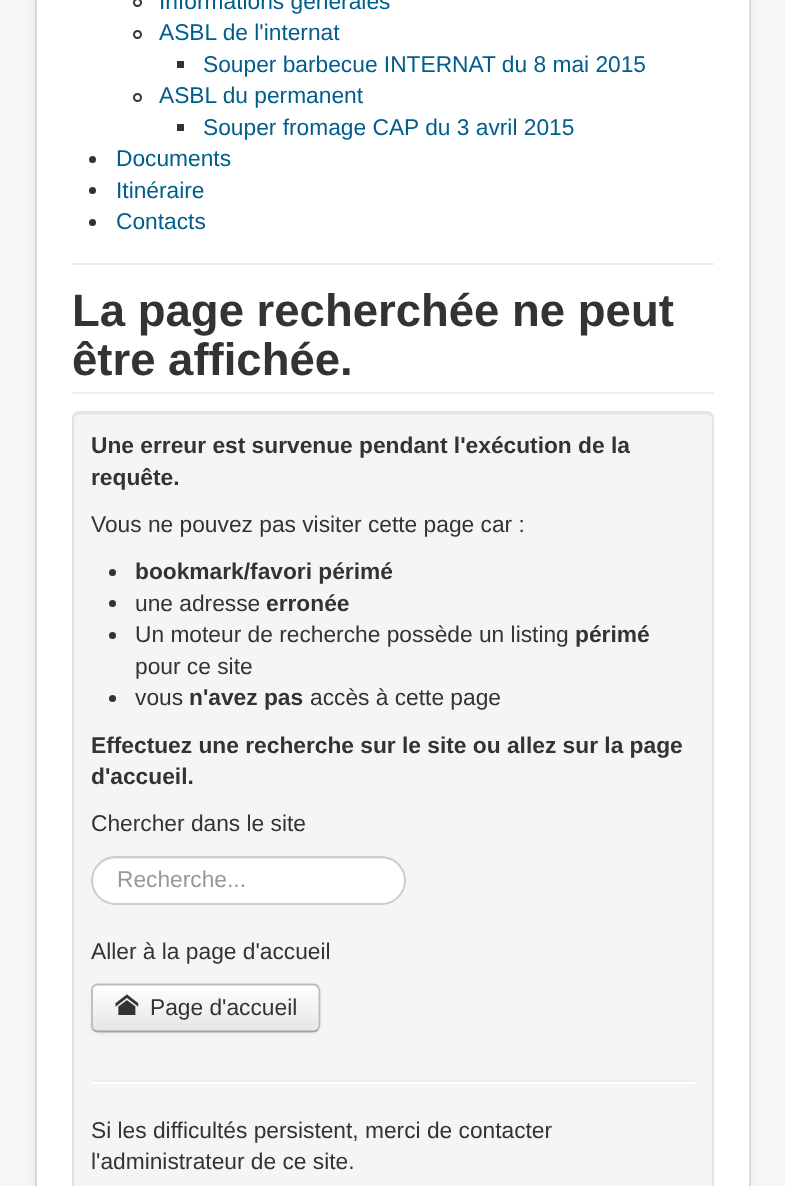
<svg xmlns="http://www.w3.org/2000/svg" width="785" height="1186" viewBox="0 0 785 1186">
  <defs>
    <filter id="blur1" x="-50%" y="-200%" width="200%" height="500%"><feGaussianBlur stdDeviation="5"/></filter>
    <filter id="blur2" x="-50%" y="-200%" width="200%" height="500%"><feGaussianBlur stdDeviation="2"/></filter>
    <clipPath id="clip1"><rect x="91" y="984" width="229" height="49" rx="7"/></clipPath>
    <linearGradient id="g1" gradientUnits="userSpaceOnUse" x1="206" y1="985" x2="206" y2="1031"><stop offset="0" stop-color="#ffffff"/><stop offset="1" stop-color="#e6e6e6"/></linearGradient>
  </defs>
  <rect width="100%" height="100%" fill="#f4f6f7"/>
  <rect x="35" y="-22" width="716" height="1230" rx="7" fill="#000000" fill-opacity="0.05" filter="url(#blur1)"/>
  <rect x="36" y="-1" width="714" height="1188" fill="#ffffff" stroke="#d9d9d9" stroke-width="2"/>
  <rect x="72" y="263" width="642" height="2" fill="#ececec"/>
  <circle cx="137.5" cy="2.5" r="3.5" fill="none" stroke="#333333" stroke-width="2"/>
  <text x="159" y="9" font-family="Liberation Sans" font-size="22.75" fill="#005e8d">Informations générales</text>
  <circle cx="137.5" cy="34.5" r="3.5" fill="none" stroke="#333333" stroke-width="2"/>
  <text x="159" y="40" font-family="Liberation Sans" font-size="22.75" fill="#005e8d">ASBL de l'internat</text>
  <rect x="177" y="61" width="7" height="7" fill="#333333"/>
  <text x="203" y="72" font-family="Liberation Sans" font-size="22.75" fill="#005e8d">Souper barbecue INTERNAT du 8 mai 2015</text>
  <circle cx="137.5" cy="97.5" r="3.5" fill="none" stroke="#333333" stroke-width="2"/>
  <text x="159" y="103" font-family="Liberation Sans" font-size="22.75" fill="#005e8d">ASBL du permanent</text>
  <rect x="177" y="124" width="7" height="7" fill="#333333"/>
  <text x="203" y="135" font-family="Liberation Sans" font-size="22.75" fill="#005e8d">Souper fromage CAP du 3 avril 2015</text>
  <circle cx="92.5" cy="159.5" r="3.5" fill="#333333"/>
  <text x="116" y="166" font-family="Liberation Sans" font-size="22.75" fill="#005e8d">Documents</text>
  <circle cx="92.5" cy="190.5" r="3.5" fill="#333333"/>
  <text x="116" y="198" font-family="Liberation Sans" font-size="22.75" fill="#005e8d">Itinéraire</text>
  <circle cx="92.5" cy="222.5" r="3.5" fill="#333333"/>
  <text x="116" y="229" font-family="Liberation Sans" font-size="22.75" fill="#005e8d">Contacts</text>
  <rect x="72" y="392" width="642" height="2" fill="#eeeeee"/>
  <text x="72" y="326" font-family="Liberation Sans" font-size="45.5" font-weight="bold" fill="#333333">La page recherchée ne peut</text>
  <text x="72" y="375" font-family="Liberation Sans" font-size="45.5" font-weight="bold" fill="#333333">être affichée.</text>
  <rect x="72" y="411" width="642" height="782" rx="7" fill="#f5f5f5"/>
  <path d="M79 415H707C710 415 712 417 712 420V418C712 415 710 413 707 413H79C76 413 74 415 74 418V420C74 417 76 415 79 415Z" fill="#e9e9e9"/>
  <rect x="73" y="412" width="640" height="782" rx="6" fill="none" stroke="#e3e3e3" stroke-width="2"/>
  <text x="91" y="453" font-family="Liberation Sans" font-size="22.75" font-weight="bold" fill="#333333">Une erreur est survenue pendant l'exécution de la</text>
  <text x="91" y="485" font-family="Liberation Sans" font-size="22.75" font-weight="bold" fill="#333333">requête.</text>
  <text x="91" y="532" font-family="Liberation Sans" font-size="22.75" fill="#333333">Vous ne pouvez pas visiter cette page car :</text>
  <circle cx="112.5" cy="572.5" r="3.5" fill="#333333"/>
  <text x="135" y="579" font-family="Liberation Sans" font-size="22.75" font-weight="bold" fill="#333333">bookmark/favori périmé</text>
  <circle cx="112.5" cy="603.5" r="3.5" fill="#333333"/>
  <text x="135" y="611" font-family="Liberation Sans" font-size="22.75" fill="#333333">une adresse</text>
  <text x="266" y="611" font-family="Liberation Sans" font-size="22.75" font-weight="bold" fill="#333333">erronée</text>
  <circle cx="112.5" cy="635.5" r="3.5" fill="#333333"/>
  <text x="135" y="642" font-family="Liberation Sans" font-size="22.75" fill="#333333">Un moteur de recherche possède un listing</text>
  <text x="575" y="642" font-family="Liberation Sans" font-size="22.75" font-weight="bold" fill="#333333">périmé</text>
  <text x="135" y="674" font-family="Liberation Sans" font-size="22.75" fill="#333333">pour ce site</text>
  <circle cx="112.5" cy="698.5" r="3.5" fill="#333333"/>
  <text x="135" y="705" font-family="Liberation Sans" font-size="22.75" fill="#333333">vous</text>
  <text x="189" y="705" font-family="Liberation Sans" font-size="22.75" font-weight="bold" fill="#333333">n'avez pas</text>
  <text x="310" y="705" font-family="Liberation Sans" font-size="22.75" fill="#333333">accès à cette page</text>
  <text x="91" y="753" font-family="Liberation Sans" font-size="22.75" font-weight="bold" fill="#333333">Effectuez une recherche sur le site ou allez sur la page</text>
  <text x="91" y="784" font-family="Liberation Sans" font-size="22.75" font-weight="bold" fill="#333333">d'accueil.</text>
  <text x="91" y="831" font-family="Liberation Sans" font-size="22.75" fill="#333333">Chercher dans le site</text>
  <rect x="91" y="856" width="315" height="49" rx="24.5" fill="#ffffff"/>
  <path d="M116 859H382C394 859 404 869 404 881C405 848 353 858 337 858H160C144 858 92 848 93 881C93 869 103 859 116 859Z" fill="#ececec"/>
  <rect x="92" y="857" width="313" height="47" rx="23.5" fill="none" stroke="#cccccc" stroke-width="2"/>
  <text x="117" y="887" font-family="Liberation Sans" font-size="22.75" fill="#999999">Recherche...</text>
  <text x="91" y="959" font-family="Liberation Sans" font-size="22.75" fill="#333333">Aller à la page d'accueil</text>
  <rect x="91" y="985" width="229" height="49" rx="7" fill="#000000" fill-opacity="0.05" filter="url(#blur2)"/>
  <rect x="91" y="984" width="229" height="49" rx="7" fill="#f5f5f5"/>
  <g clip-path="url(#clip1)">
    <rect x="91" y="985" width="229" height="46" fill="url(#g1)"/>
  </g>
  <path d="M98 987H313C316 987 318 989 318 992V1027L317 1030C318 1029 319 1027 319 1026V990C319 987 317 985 314 985H98C95 985 93 987 93 990V992C93 989 95 987 98 987Z" fill="#ffffff" fill-opacity="0.2"/>
  <path d="M317.5 1030C316.5 1031 315 1031.5 313 1031.5H98C96.5 1031.5 95 1031 93.5 1030" fill="none" stroke="#a2a2a2" stroke-width="1.8"/>
  <path d="M93.5 1030C92.5 1028.5 92 1027 92 1025.5V990.5C92 989 92.5 987.5 93.5 986C95 985 96.5 984.5 98 984.5H313C315 984.5 316.5 985 317.5 986C318.5 987.5 319.5 989 319.5 990.5V1025.5C319.5 1027 318.5 1028.5 317.5 1030" fill="none" stroke="#bbbbbb" stroke-width="1.8"/>
  <image x="115" y="994" width="24" height="21" href="img1.png"/>
  <text x="150" y="1015" font-family="Liberation Sans" font-size="22.75" fill="#333333">Page d'accueil</text>
  <rect x="91" y="1080" width="604" height="2" fill="#eeeeee"/>
  <rect x="91" y="1082" width="604" height="2" fill="#ffffff"/>
  <text x="91" y="1138" font-family="Liberation Sans" font-size="22.75" fill="#333333">Si les difficultés persistent, merci de contacter</text>
  <text x="91" y="1169" font-family="Liberation Sans" font-size="22.75" fill="#333333">l'administrateur de ce site.</text>
</svg>
